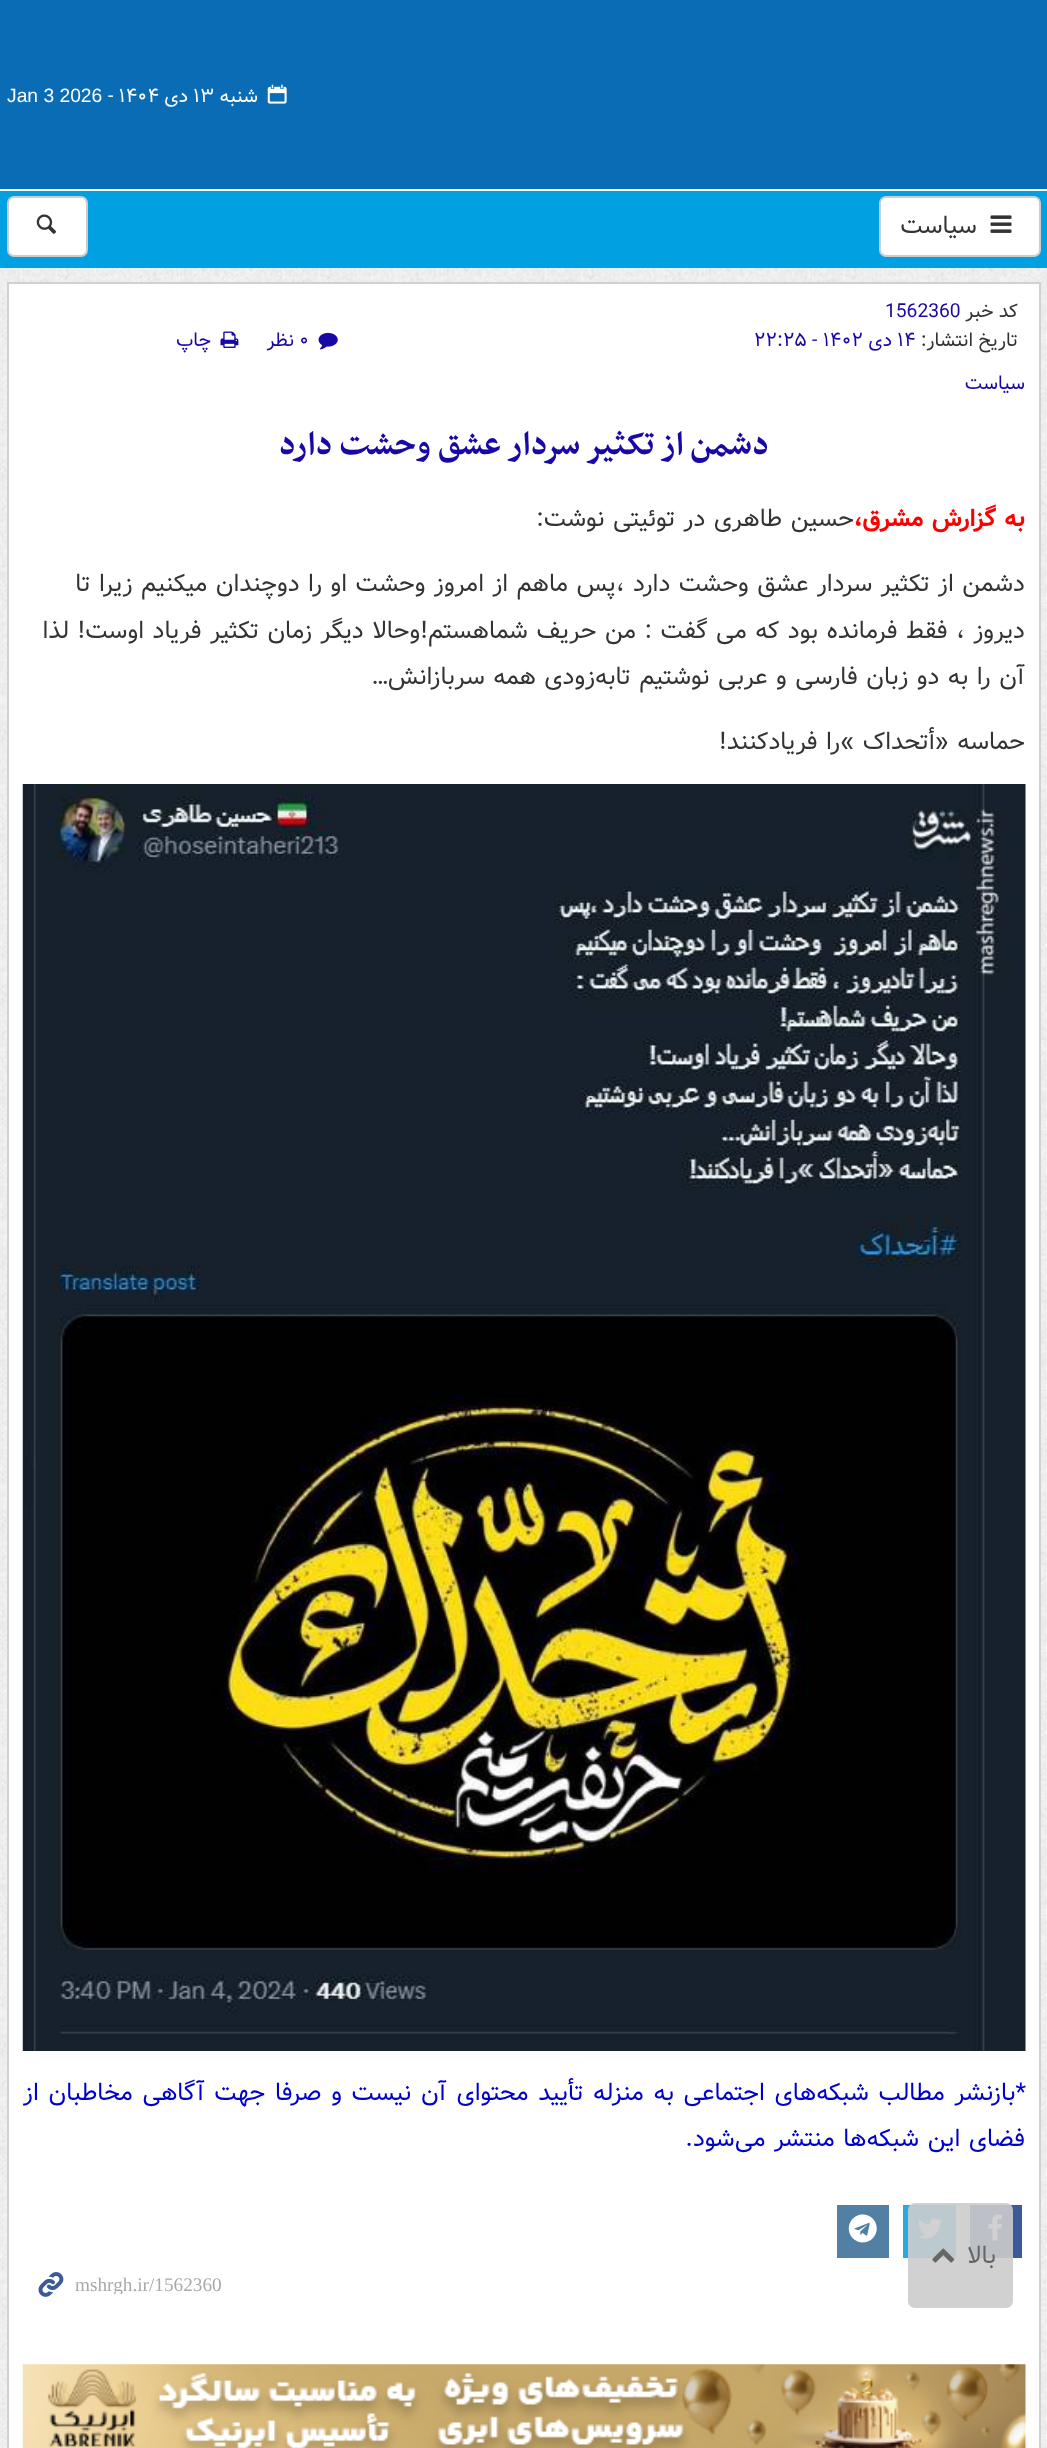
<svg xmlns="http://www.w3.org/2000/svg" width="1047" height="2448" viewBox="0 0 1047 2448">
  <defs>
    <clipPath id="clip1"><rect x="75" y="2273" width="382" height="21"/></clipPath>
  </defs>
  <rect width="100%" height="100%" fill="#ffffff"/>
  <image x="0" y="268" width="1047" height="2180" href="img1.png"/>
  <rect x="0" y="0" width="1047" height="189" fill="#096cb5"/>
  <image x="267" y="84" width="20" height="20" href="img2.png"/>
  <text x="258" y="102" font-family="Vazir" font-size="19.25" direction="rtl" fill="#ffffff">شنبه</text>
  <text x="193" y="102" font-family="Vazir" font-size="19.25" fill="#ffffff">۱۳</text>
  <text x="188" y="102" font-family="Vazir" font-size="19.25" direction="rtl" fill="#ffffff">دی</text>
  <text x="108" y="102" font-family="Vazir" font-size="19.25" fill="#ffffff">- ۱۴۰۴</text>
  <text x="7" y="102" font-family="Liberation Sans" font-size="19.25" fill="#ffffff">Jan 3 2026</text>
  <rect x="0" y="191" width="1047" height="77" fill="#01a0e1"/>
  <rect x="880" y="197" width="160" height="59" rx="6" fill="#ffffff" stroke="#cccccc" stroke-width="2"/>
  <image x="990" y="215" width="22" height="18" href="img3.png"/>
  <text x="977" y="233" font-family="Vazir" font-size="24.5" direction="rtl" fill="#333333">سیاست</text>
  <rect x="8" y="197" width="79" height="59" rx="6" fill="#ffffff" stroke="#cccccc" stroke-width="2"/>
  <image x="36" y="214" width="20" height="20" href="img4.png"/>
  <rect x="8" y="283" width="1032" height="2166" fill="#ffffff" stroke="#d1d1d1" stroke-width="2"/>
  <text x="1018" y="317" font-family="Vazir" font-size="19.25" direction="rtl" fill="#333333">کد خبر</text>
  <text x="885" y="317" font-family="Vazir" font-size="19.25" fill="#1809a6">1562360</text>
  <text x="1018" y="346" font-family="Vazir" font-size="19.25" direction="rtl" fill="#333333">تاریخ انتشار:</text>
  <text x="897" y="346" font-family="Vazir" font-size="19.25" fill="#1809a6">۱۴</text>
  <text x="892" y="346" font-family="Vazir" font-size="19.25" direction="rtl" fill="#1809a6">دی</text>
  <text x="754" y="346" font-family="Vazir" font-size="19.25" fill="#1809a6">۲۲:۲۵ - ۱۴۰۲</text>
  <image x="318" y="332" width="20" height="18" href="img5.png"/>
  <text x="299" y="346" font-family="Vazir" font-size="19.25" fill="#1809a6">۰</text>
  <text x="294" y="346" font-family="Vazir" font-size="19.25" direction="rtl" fill="#1809a6">نظر</text>
  <image x="220" y="331" width="19" height="17" href="img6.png"/>
  <text x="211" y="346" font-family="Vazir" font-size="19.25" direction="rtl" fill="#1809a6">چاپ</text>
  <text x="1025" y="389" font-family="Vazir" font-size="19.25" direction="rtl" fill="#1809a6">سیاست</text>
  <text x="769" y="454" font-family="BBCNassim" font-size="38.5" font-weight="bold" direction="rtl" fill="#1809a6">دشمن از تکثیر سردار عشق وحشت دارد</text>
  <text x="1025" y="526" word-spacing="1.75" font-family="Vazir" font-size="24.5" font-weight="bold" direction="rtl" fill="#ff0000">به گزارش مشرق،</text>
  <text x="854" y="526" word-spacing="1.75" font-family="Vazir" font-size="24.5" direction="rtl" fill="#333333">حسین طاهری در توئیتی نوشت:</text>
  <text x="1025" y="591" word-spacing="1.75" font-family="Vazir" font-size="24.5" direction="rtl" fill="#333333">دشمن از تکثیر سردار عشق وحشت دارد ،پس ماهم از امروز وحشت او را دوچندان میکنیم زیرا تا</text>
  <text x="1025" y="638" word-spacing="1.75" font-family="Vazir" font-size="24.5" direction="rtl" fill="#333333">دیروز ، فقط فرمانده بود که می گفت : من حریف شماهستم!وحالا دیگر زمان تکثیر فریاد اوست! لذا</text>
  <text x="1025" y="684" word-spacing="1.75" font-family="Vazir" font-size="24.5" direction="rtl" fill="#333333">آن را به دو زبان فارسی و عربی نوشتیم تابه‌زودی همه سربازانش…</text>
  <text x="1025" y="749" word-spacing="1.75" font-family="Vazir" font-size="24.5" direction="rtl" fill="#333333">حماسه «أتحداک »را فریادکنند!</text>
  <image x="22" y="784" width="1004" height="1267" href="img7.png"/>
  <text x="1026" y="2100" word-spacing="3" font-family="Vazir" font-size="24.5" direction="rtl" fill="#0000cd">*بازنشر مطالب شبکه‌های اجتماعی به منزله تأیید محتوای آن نیست و صرفا جهت آگاهی مخاطبان از</text>
  <text x="1025" y="2146" word-spacing="1.75" font-family="Vazir" font-size="24.5" direction="rtl" fill="#0000cd">فضای این شبکه‌ها منتشر می‌شود.</text>
  <rect x="970" y="2205" width="52" height="53" fill="#3b5a9a"/>
  <image x="988" y="2214" width="14" height="27" href="img8.png"/>
  <rect x="903" y="2205" width="53" height="53" fill="#28a9e2"/>
  <image x="918" y="2218" width="25" height="21" href="img9.png"/>
  <rect x="837" y="2205" width="52" height="53" fill="#5280a4"/>
  <image x="848" y="2214" width="29" height="29" href="img10.png"/>
  <g clip-path="url(#clip1)">
    <text x="75" y="2291" font-family="Liberation Serif" font-size="19.25" fill="#a9a9a9">mshrgh.ir/1562360</text>
  </g>
  <image x="38" y="2272" width="26" height="25" href="img11.png"/>
  <image x="22" y="2364" width="1004" height="84" href="img12.png"/>
  <rect x="908" y="2203" width="105" height="105" rx="7" fill="#cccccc" fill-opacity="0.9"/>
  <text x="996" y="2263" font-family="Vazir" font-size="24.5" direction="rtl" fill="#666666">بالا</text>
  <image x="932" y="2248" width="23" height="15" href="img13.png"/>
</svg>
